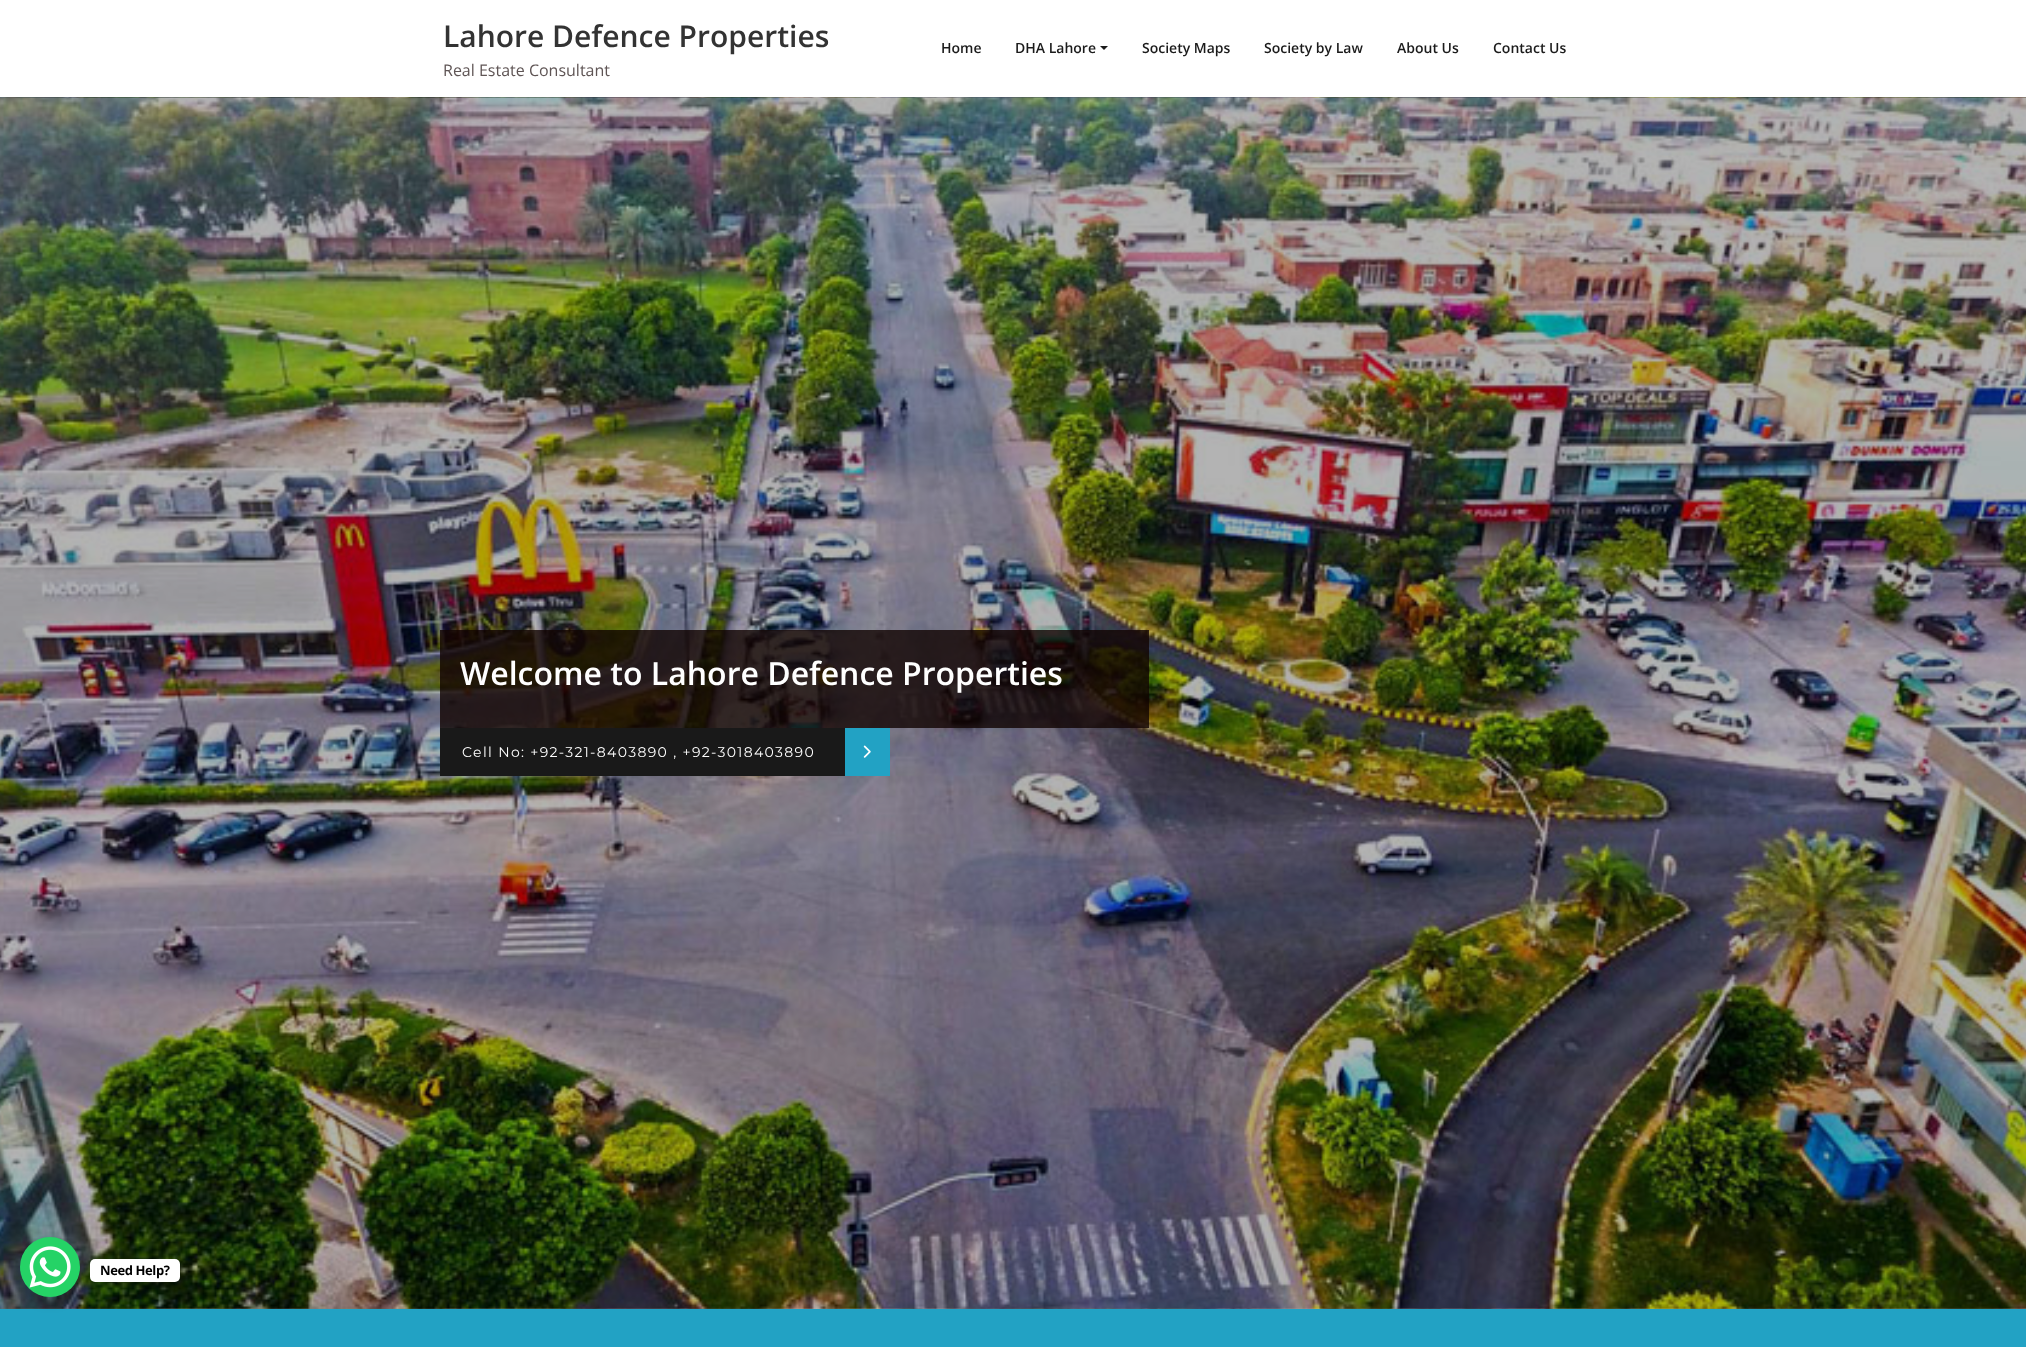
<svg xmlns="http://www.w3.org/2000/svg" width="2026" height="1347" viewBox="0 0 2026 1347">
  <defs>
    <filter id="blur1" x="-50%" y="-200%" width="200%" height="500%"><feGaussianBlur stdDeviation="4"/></filter>
  </defs>
  <rect width="100%" height="100%" fill="#ffffff"/>
  <text x="443" y="47" font-family="Open Sans" font-size="30" font-weight="600" fill="#333333">Lahore Defence Properties</text>
  <text x="443" y="76" font-family="Open Sans" font-size="16" fill="#5f5555">Real Estate Consultant</text>
  <text x="941" y="53" font-family="Open Sans" font-size="14" font-weight="600" fill="#1b1b1b">Home</text>
  <text x="1015" y="53" font-family="Open Sans" font-size="14" font-weight="600" fill="#1b1b1b">DHA Lahore</text>
  <path d="M1100 46H1108L1104 50Z" fill="#1b1b1b"/>
  <text x="1142" y="53" font-family="Open Sans" font-size="14" font-weight="600" fill="#1b1b1b">Society Maps</text>
  <text x="1264" y="53" font-family="Open Sans" font-size="14" font-weight="600" fill="#1b1b1b">Society by Law</text>
  <text x="1397" y="53" font-family="Open Sans" font-size="14" font-weight="600" fill="#1b1b1b">About Us</text>
  <text x="1493" y="53" font-family="Open Sans" font-size="14" font-weight="600" fill="#1b1b1b">Contact Us</text>
  <image x="0" y="97" width="2026" height="1212" href="img1.png"/>
  <rect x="440" y="630" width="709" height="98" fill="#120401" fill-opacity="0.8"/>
  <text x="460" y="685" font-family="Open Sans" font-size="32" font-weight="600" fill="#ffffff">Welcome to Lahore Defence Properties</text>
  <rect x="440" y="728" width="405" height="48" fill="#191919"/>
  <text x="462" y="757" font-family="Montserrat" font-size="14" letter-spacing="1.35" fill="#ffffff">Cell No: +92-321-8403890 , +92-3018403890</text>
  <rect x="845" y="728" width="45" height="48" fill="#22a2c4"/>
  <image x="863" y="745" width="8" height="13" href="img2.png"/>
  <rect x="0" y="1309" width="2026" height="38" fill="#22a2c4"/>
  <rect x="18" y="1241" width="64" height="64" rx="32" fill="#000000" fill-opacity="0.15" filter="url(#blur1)"/>
  <circle cx="50" cy="1267" r="30" fill="#25d366"/>
  <image x="29" y="1246" width="42" height="42" href="img3.png"/>
  <rect x="88" y="1263" width="94" height="27" rx="7" fill="#000000" fill-opacity="0.15" filter="url(#blur1)"/>
  <rect x="90" y="1259" width="90" height="23" rx="5" fill="#ffffff"/>
  <text x="100" y="1275" font-family="Open Sans" font-size="13" font-weight="bold" letter-spacing="-0.4" fill="#000000">Need Help?</text>
</svg>
